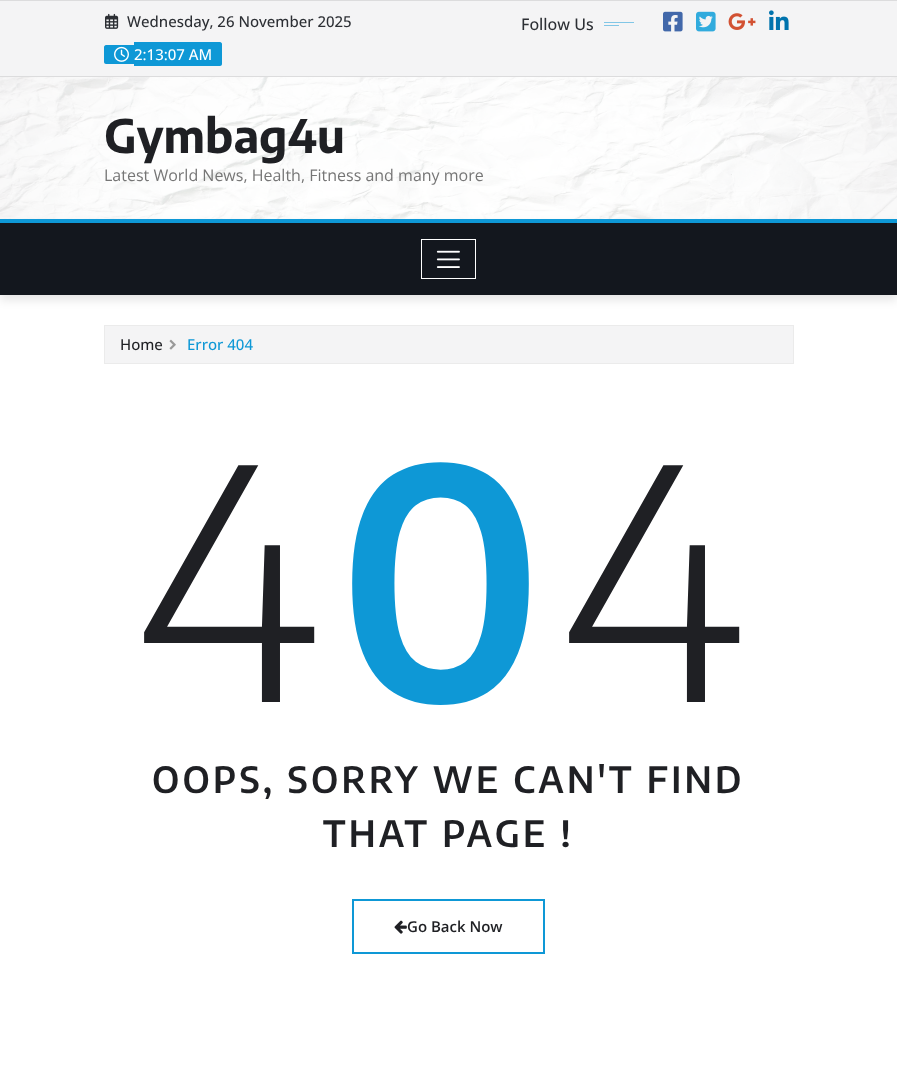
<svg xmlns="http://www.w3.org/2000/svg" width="897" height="1069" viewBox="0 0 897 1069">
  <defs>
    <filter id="blur1" x="-50%" y="-200%" width="200%" height="500%"><feGaussianBlur stdDeviation="5"/></filter>
  </defs>
  <rect width="100%" height="100%" fill="#ffffff"/>
  <rect x="0" y="1" width="897" height="75" fill="#f4f4f5"/>
  <rect x="0" y="0" width="897" height="1" fill="#dcdcdd"/>
  <rect x="0" y="76" width="897" height="1" fill="#dcdcdd"/>
  <image x="105" y="13" width="14" height="16" href="img1.png"/>
  <text x="127" y="27" font-family="Open Sans" font-size="15" font-weight="500" fill="#2c2f34">Wednesday, 26 November 2025</text>
  <path d="M106 45H134V64H106C105 64 104 63 104 62V47C104 46 105 45 106 45Z" fill="#0e98d6"/>
  <image x="114" y="46" width="15" height="16" href="img2.png"/>
  <path d="M134 42H220C221 42 222 43 222 44V64C222 65 221 66 220 66H134Z" fill="#0e98d6"/>
  <text x="134" y="60" font-family="Open Sans" font-size="15" font-weight="500" fill="#ffffff">2:13:07 AM</text>
  <text x="521" y="30" font-family="Open Sans" font-size="16" font-weight="500" fill="#2c2f34">Follow Us</text>
  <rect x="604" y="22" width="30" height="1" fill="#81c6e6"/>
  <rect x="604" y="25" width="15" height="1" fill="#81c6e6"/>
  <image x="663" y="11" width="20" height="21" href="img3.png"/>
  <image x="696" y="11" width="20" height="21" href="img4.png"/>
  <image x="728" y="13" width="28" height="17" href="img5.png"/>
  <image x="769" y="10" width="20" height="20" href="img6.png"/>
  <image x="0" y="77" width="897" height="142" href="img7.png"/>
  <text x="104" y="153" font-family="Encode Sans Condensed" font-size="46" font-weight="bold" fill="#1f2024">Gymbag4u</text>
  <text x="104" y="181" font-family="Open Sans" font-size="16" fill="#767676">Latest World News, Health, Fitness and many more</text>
  <rect x="0" y="224" width="897" height="76" fill="#000000" fill-opacity="0.1" filter="url(#blur1)"/>
  <rect x="0" y="223" width="897" height="72" fill="#13171e"/>
  <rect x="0" y="219" width="897" height="4" fill="#0e98d6"/>
  <rect x="421.5" y="239.5" width="54" height="39" fill="none" stroke="#ffffff"/>
  <image x="436" y="250" width="24" height="18" href="img8.png"/>
  <rect x="104.5" y="325.5" width="689" height="38" fill="#f4f4f5" stroke="#ebebeb"/>
  <text x="120" y="350" font-family="Open Sans" font-size="15" font-weight="500" fill="#1f2024">Home</text>
  <image x="169" y="339" width="7" height="11" href="img9.png"/>
  <text x="187" y="350" font-family="Open Sans" font-size="15" font-weight="500" fill="#0e98d6">Error 404</text>
  <text x="136" y="702" font-family="Encode Sans Condensed" font-size="320" font-weight="300" letter-spacing="15" fill="#1f2024">4</text>
  <text x="336" y="702" font-family="Encode Sans Condensed" font-size="320" font-weight="600" letter-spacing="15" fill="#0e98d6">0</text>
  <text x="561" y="702" font-family="Encode Sans Condensed" font-size="320" font-weight="300" letter-spacing="15" fill="#1f2024">4</text>
  <text x="152" y="793" font-family="Encode Sans Condensed" font-size="36" font-weight="600" letter-spacing="3.2" fill="#1f2024">OOPS, SORRY WE CAN'T FIND</text>
  <text x="323" y="847" font-family="Encode Sans Condensed" font-size="36" font-weight="600" letter-spacing="3.2" fill="#1f2024">THAT PAGE !</text>
  <rect x="353" y="900" width="191" height="53" fill="none" stroke="#0e98d6" stroke-width="2"/>
  <image x="394" y="920" width="13" height="14" href="img10.png"/>
  <text x="407" y="932" font-family="Open Sans" font-size="15" font-weight="600" fill="#1f2024">Go Back Now</text>
</svg>
